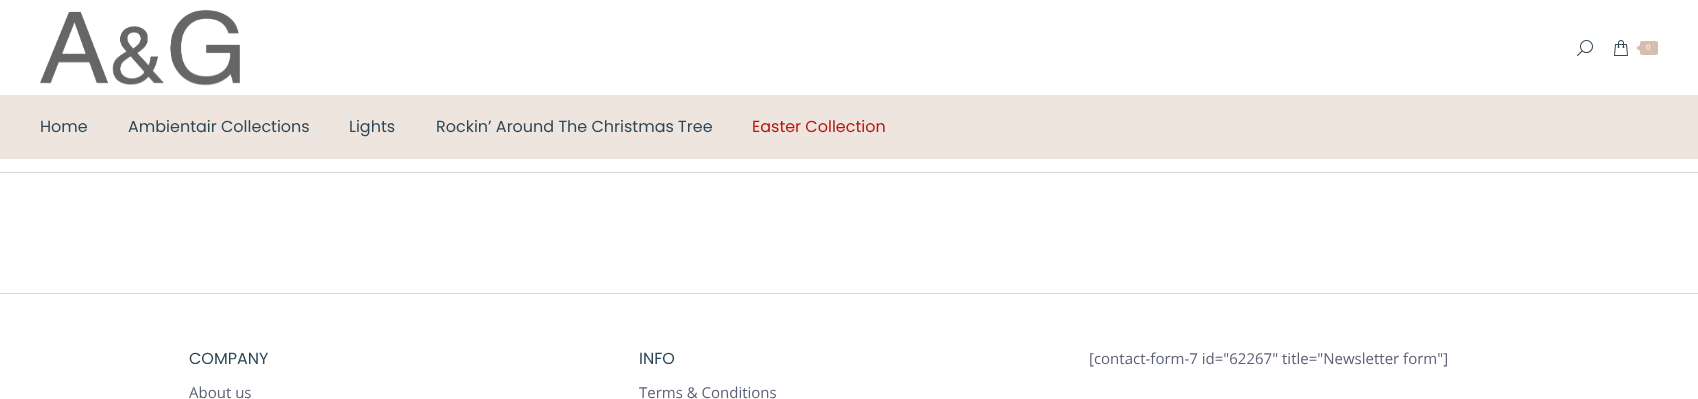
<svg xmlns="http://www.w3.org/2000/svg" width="1698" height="399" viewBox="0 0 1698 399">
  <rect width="100%" height="100%" fill="#ffffff"/>
  <image x="40" y="10" width="200" height="76" href="img1.png"/>
  <image x="1577" y="40" width="16" height="16" href="img2.png"/>
  <image x="1614" y="40" width="14" height="16" href="img3.png"/>
  <rect x="1640" y="41" width="18" height="14" rx="2" fill="#d7bdae"/>
  <path d="M1640 45V51L1636 48Z" fill="#d7bdae"/>
  <text x="1646" y="50" font-family="Liberation Sans" font-size="8" fill="#ffffff">0</text>
  <rect x="0" y="95" width="1698" height="64" fill="#efe5df"/>
  <text x="40" y="132" font-family="Poppins" font-size="16" fill="#2f4858">Home</text>
  <text x="128" y="132" font-family="Poppins" font-size="16" fill="#2f4858">Ambientair Collections</text>
  <text x="349" y="132" font-family="Poppins" font-size="16" fill="#2f4858">Lights</text>
  <text x="436" y="132" font-family="Poppins" font-size="16" fill="#2f4858">Rockin’ Around The Christmas Tree</text>
  <text x="752" y="132" font-family="Poppins" font-size="16" fill="#b81611">Easter Collection</text>
  <rect x="0" y="172" width="1698" height="1" fill="#d5dade"/>
  <rect x="0" y="293" width="1698" height="1" fill="#d5dade"/>
  <text x="189" y="364" font-family="Poppins" font-size="16" fill="#2f4858">COMPANY</text>
  <text x="189" y="398" font-family="Open Sans" font-size="15" fill="#5c6174">About us</text>
  <text x="639" y="364" font-family="Poppins" font-size="16" fill="#2f4858">INFO</text>
  <text x="639" y="398" font-family="Open Sans" font-size="15" fill="#5c6174">Terms &amp; Conditions</text>
  <text x="1089" y="364" font-family="Open Sans" font-size="15" fill="#5c6174">[contact-form-7 id="62267" title="Newsletter form"]</text>
</svg>
